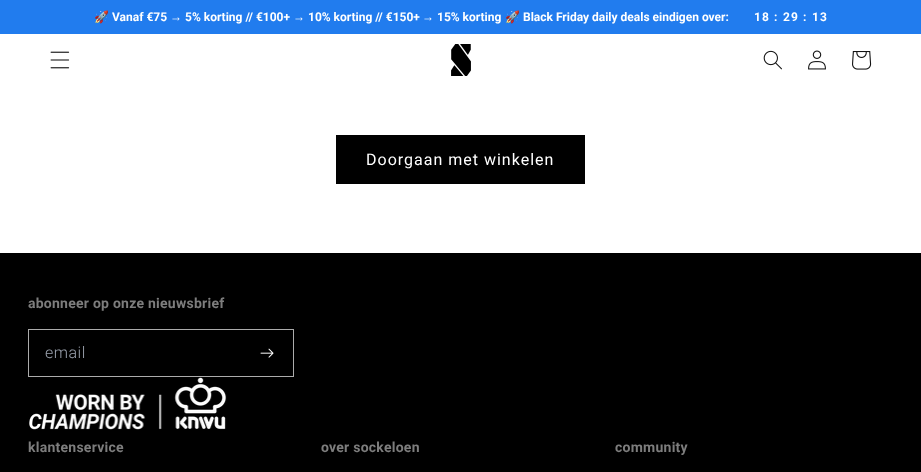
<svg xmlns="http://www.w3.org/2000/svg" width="921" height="472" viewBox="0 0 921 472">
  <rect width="100%" height="100%" fill="#ffffff"/>
  <rect x="0" y="0" width="921" height="34" fill="#217cee"/>
  <text x="94" y="21" font-family="Noto Color Emoji" font-size="12" font-weight="bold" fill="#ffffff">🚀</text>
  <text x="112" y="21" font-family="Roboto" font-size="12" font-weight="bold" fill="#ffffff">Vanaf €75</text>
  <text x="170" y="21" font-family="Liberation Sans" font-size="12" font-weight="bold" fill="#ffffff">→</text>
  <text x="185" y="21" font-family="Roboto" font-size="12" font-weight="bold" fill="#ffffff">5% korting // €100+</text>
  <text x="293" y="21" font-family="Liberation Sans" font-size="12" font-weight="bold" fill="#ffffff">→</text>
  <text x="308" y="21" font-family="Roboto" font-size="12" font-weight="bold" fill="#ffffff">10% korting // €150+</text>
  <text x="422" y="21" font-family="Liberation Sans" font-size="12" font-weight="bold" fill="#ffffff">→</text>
  <text x="437" y="21" font-family="Roboto" font-size="12" font-weight="bold" fill="#ffffff">15% korting</text>
  <text x="505" y="21" font-family="Noto Color Emoji" font-size="12" font-weight="bold" fill="#ffffff">🚀</text>
  <text x="523" y="21" font-family="Roboto" font-size="12" font-weight="bold" fill="#ffffff">Black Friday daily deals eindigen over:</text>
  <text x="754" y="21" font-family="Roboto" font-size="12" font-weight="bold" letter-spacing="1" fill="#ffffff">18</text>
  <text x="774" y="21" font-family="Roboto" font-size="12" font-weight="bold" letter-spacing="1" fill="#ffffff">:</text>
  <text x="783" y="21" font-family="Roboto" font-size="12" font-weight="bold" letter-spacing="1" fill="#ffffff">29</text>
  <text x="803" y="21" font-family="Roboto" font-size="12" font-weight="bold" letter-spacing="1" fill="#ffffff">:</text>
  <text x="812" y="21" font-family="Roboto" font-size="12" font-weight="bold" letter-spacing="1" fill="#ffffff">13</text>
  <image x="50" y="51" width="20" height="18" href="img1.png"/>
  <image x="451" y="44" width="20" height="32" href="img2.png"/>
  <image x="763" y="50" width="19" height="20" href="img3.png"/>
  <image x="808" y="50" width="18" height="20" href="img4.png"/>
  <image x="852" y="51" width="20" height="19" href="img5.png"/>
  <rect x="336" y="135" width="249" height="49" fill="#000000"/>
  <text x="366" y="165" font-family="Roboto" font-size="16" letter-spacing="1" fill="#ffffff">Doorgaan met winkelen</text>
  <rect x="0" y="253" width="921" height="219" fill="#000000"/>
  <text x="28" y="308" font-family="Roboto" font-size="14" font-weight="bold" letter-spacing="0.25" fill="#7d7d7d">abonneer op onze nieuwsbrief</text>
  <rect x="28.5" y="329.5" width="265" height="47" fill="none" stroke="#ababab"/>
  <text x="45" y="358" font-family="Roboto" font-size="16" font-weight="300" letter-spacing="0.5" fill="#9ca3af">email</text>
  <image x="260" y="348" width="14" height="10" href="img6.png"/>
  <image x="29" y="377" width="198" height="53" href="img7.png"/>
  <text x="28" y="452" font-family="Roboto" font-size="14" font-weight="bold" letter-spacing="0.25" fill="#7d7d7d">klantenservice</text>
  <text x="321" y="452" font-family="Roboto" font-size="14" font-weight="bold" letter-spacing="0.25" fill="#7d7d7d">over sockeloen</text>
  <text x="615" y="452" font-family="Roboto" font-size="14" font-weight="bold" letter-spacing="0.25" fill="#7d7d7d">community</text>
</svg>
